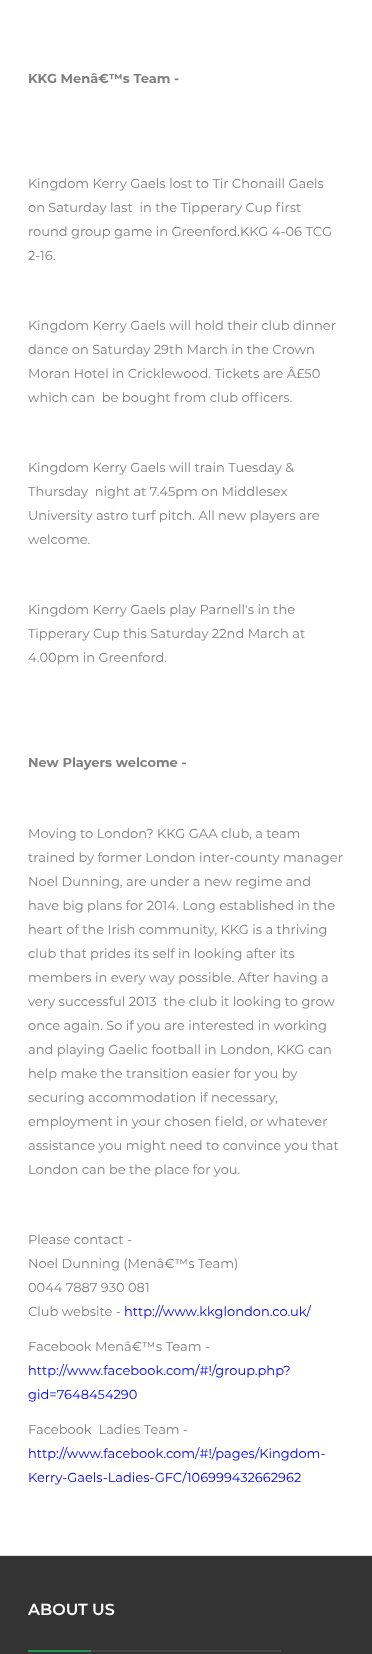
<svg xmlns="http://www.w3.org/2000/svg" width="372" height="1654" viewBox="0 0 372 1654">
  <rect width="100%" height="100%" fill="#ffffff"/>
  <text x="28" y="83" font-family="Montserrat" font-size="13" font-weight="bold" fill="#808080">KKG Menâ€™s Team -</text>
  <text x="28" y="188" font-family="Montserrat" font-size="13" fill="#808080">Kingdom Kerry Gaels lost to Tir Chonaill Gaels</text>
  <text x="28" y="212" font-family="Montserrat" font-size="13" fill="#808080" xml:space="preserve">on Saturday last  in the Tipperary Cup first</text>
  <text x="28" y="236" font-family="Montserrat" font-size="13" fill="#808080">round group game in Greenford.KKG 4-06 TCG</text>
  <text x="28" y="260" font-family="Montserrat" font-size="13" fill="#808080">2-16.</text>
  <text x="28" y="330" font-family="Montserrat" font-size="13" fill="#808080">Kingdom Kerry Gaels will hold their club dinner</text>
  <text x="28" y="354" font-family="Montserrat" font-size="13" fill="#808080">dance on Saturday 29th March in the Crown</text>
  <text x="28" y="378" font-family="Montserrat" font-size="13" fill="#808080">Moran Hotel in Cricklewood. Tickets are Â£50</text>
  <text x="28" y="402" font-family="Montserrat" font-size="13" fill="#808080" xml:space="preserve">which can  be bought from club officers.</text>
  <text x="28" y="472" font-family="Montserrat" font-size="13" fill="#808080">Kingdom Kerry Gaels will train Tuesday &amp;</text>
  <text x="28" y="496" font-family="Montserrat" font-size="13" fill="#808080" xml:space="preserve">Thursday  night at 7.45pm on Middlesex</text>
  <text x="28" y="520" font-family="Montserrat" font-size="13" fill="#808080">University astro turf pitch. All new players are</text>
  <text x="28" y="544" font-family="Montserrat" font-size="13" fill="#808080">welcome.</text>
  <text x="28" y="614" font-family="Montserrat" font-size="13" fill="#808080">Kingdom Kerry Gaels play Parnell's in the</text>
  <text x="28" y="638" font-family="Montserrat" font-size="13" fill="#808080">Tipperary Cup this Saturday 22nd March at</text>
  <text x="28" y="662" font-family="Montserrat" font-size="13" fill="#808080">4.00pm in Greenford.</text>
  <text x="28" y="767" font-family="Montserrat" font-size="13" font-weight="bold" fill="#808080">New Players welcome -</text>
  <text x="28" y="838" font-family="Montserrat" font-size="13" fill="#808080">Moving to London? KKG GAA club, a team</text>
  <text x="28" y="862" font-family="Montserrat" font-size="13" fill="#808080">trained by former London inter-county manager</text>
  <text x="28" y="886" font-family="Montserrat" font-size="13" fill="#808080">Noel Dunning, are under a new regime and</text>
  <text x="28" y="910" font-family="Montserrat" font-size="13" fill="#808080">have big plans for 2014. Long established in the</text>
  <text x="28" y="934" font-family="Montserrat" font-size="13" fill="#808080">heart of the Irish community, KKG is a thriving</text>
  <text x="28" y="958" font-family="Montserrat" font-size="13" fill="#808080">club that prides its self in looking after its</text>
  <text x="28" y="982" font-family="Montserrat" font-size="13" fill="#808080">members in every way possible. After having a</text>
  <text x="28" y="1006" font-family="Montserrat" font-size="13" fill="#808080" xml:space="preserve">very successful 2013  the club it looking to grow</text>
  <text x="28" y="1030" font-family="Montserrat" font-size="13" fill="#808080">once again. So if you are interested in working</text>
  <text x="28" y="1054" font-family="Montserrat" font-size="13" fill="#808080">and playing Gaelic football in London, KKG can</text>
  <text x="28" y="1078" font-family="Montserrat" font-size="13" fill="#808080">help make the transition easier for you by</text>
  <text x="28" y="1102" font-family="Montserrat" font-size="13" fill="#808080">securing accommodation if necessary,</text>
  <text x="28" y="1126" font-family="Montserrat" font-size="13" fill="#808080">employment in your chosen field, or whatever</text>
  <text x="28" y="1150" font-family="Montserrat" font-size="13" fill="#808080">assistance you might need to convince you that</text>
  <text x="28" y="1174" font-family="Montserrat" font-size="13" fill="#808080">London can be the place for you.</text>
  <text x="28" y="1244" font-family="Montserrat" font-size="13" fill="#808080">Please contact -</text>
  <text x="28" y="1268" font-family="Montserrat" font-size="13" fill="#808080">Noel Dunning (Menâ€™s Team)</text>
  <text x="28" y="1292" font-family="Montserrat" font-size="13" fill="#808080">0044 7887 930 081</text>
  <text x="28" y="1316" font-family="Montserrat" font-size="13" fill="#808080">Club website -</text>
  <text x="124" y="1316" font-family="Montserrat" font-size="13" fill="#0000ee">http://www.kkglondon.co.uk/</text>
  <text x="28" y="1351" font-family="Montserrat" font-size="13" fill="#808080">Facebook Menâ€™s Team -</text>
  <text x="28" y="1375" font-family="Montserrat" font-size="13" fill="#0000ee">http://www.facebook.com/#!/group.php?</text>
  <text x="28" y="1399" font-family="Montserrat" font-size="13" fill="#0000ee">gid=7648454290</text>
  <text x="28" y="1434" font-family="Montserrat" font-size="13" fill="#808080" xml:space="preserve">Facebook  Ladies Team -</text>
  <text x="28" y="1458" font-family="Montserrat" font-size="13" fill="#0000ee">http://www.facebook.com/#!/pages/Kingdom-</text>
  <text x="28" y="1482" font-family="Montserrat" font-size="13" fill="#0000ee">Kerry-Gaels-Ladies-GFC/106999432662962</text>
  <rect x="0" y="1556" width="372" height="98" fill="#333333"/>
  <rect x="0" y="1555" width="372" height="1" fill="#e1e1e1"/>
  <text x="28" y="1615" font-family="Montserrat" font-size="16" font-weight="600" fill="#ffffff">ABOUT US</text>
  <rect x="28" y="1650" width="63" height="2" fill="#219650"/>
  <rect x="91" y="1650" width="190" height="2" fill="#474747"/>
</svg>
